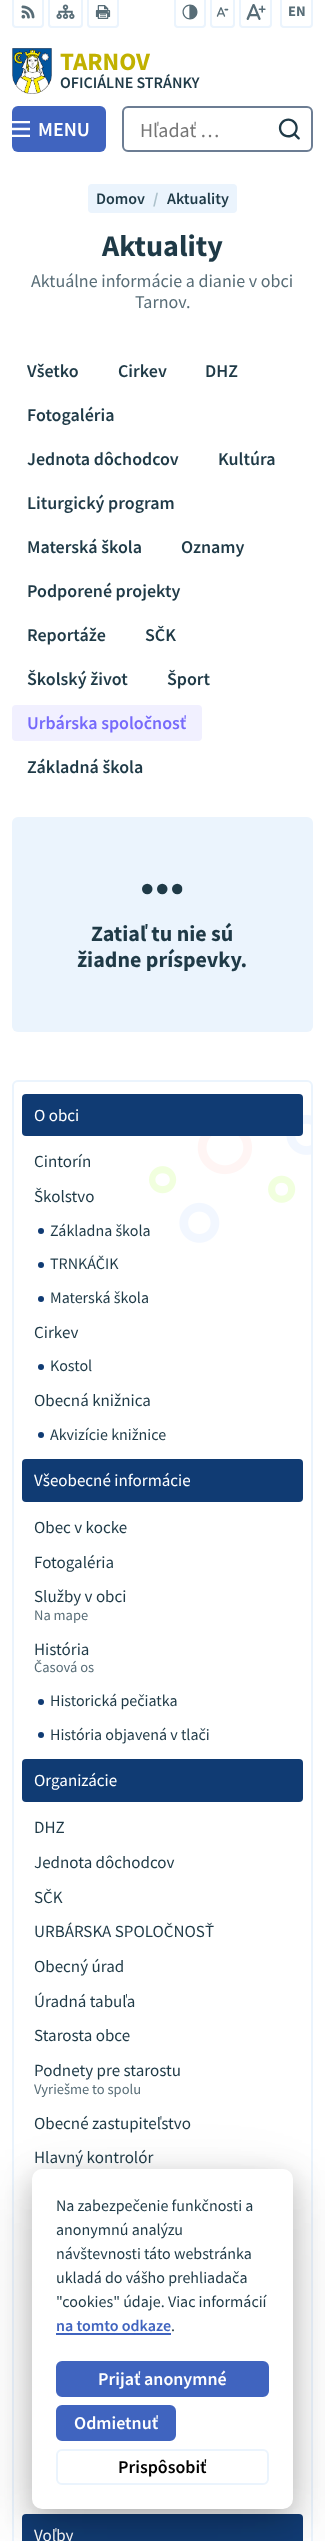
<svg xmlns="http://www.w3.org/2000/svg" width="325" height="2541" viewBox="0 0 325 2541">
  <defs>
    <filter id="blur1" x="-50%" y="-200%" width="200%" height="500%"><feGaussianBlur stdDeviation="45"/></filter>
    <filter id="blur2" x="-50%" y="-200%" width="200%" height="500%"><feGaussianBlur stdDeviation="30"/></filter>
    <filter id="blur3" x="-50%" y="-200%" width="200%" height="500%"><feGaussianBlur stdDeviation="15"/></filter>
  </defs>
  <rect width="100%" height="100%" fill="#ffffff"/>
  <rect x="13" y="-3" width="30" height="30" rx="3" fill="none" stroke="#ebf4fd" stroke-width="2"/>
  <image x="21" y="5" width="14" height="14" href="img1.png"/>
  <rect x="49" y="-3" width="33" height="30" rx="3" fill="none" stroke="#ebf4fd" stroke-width="2"/>
  <image x="56" y="4" width="19" height="15" href="img2.png"/>
  <rect x="88" y="-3" width="30" height="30" rx="3" fill="none" stroke="#ebf4fd" stroke-width="2"/>
  <image x="95" y="5" width="16" height="14" href="img3.png"/>
  <rect x="175" y="-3" width="30" height="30" rx="3" fill="none" stroke="#ebf4fd" stroke-width="2"/>
  <image x="182" y="4" width="16" height="16" href="img4.png"/>
  <rect x="211" y="-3" width="23" height="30" rx="3" fill="none" stroke="#ebf4fd" stroke-width="2"/>
  <image x="216" y="7" width="13" height="10" href="img5.png"/>
  <rect x="240" y="-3" width="31" height="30" rx="3" fill="none" stroke="#ebf4fd" stroke-width="2"/>
  <image x="246" y="4" width="20" height="16" href="img6.png"/>
  <rect x="281" y="-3" width="31" height="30" rx="3" fill="none" stroke="#ebf4fd" stroke-width="2"/>
  <text x="288" y="16" font-family="Source Sans Pro" font-size="14.5" font-weight="bold" fill="#586d77">EN</text>
  <image x="12" y="48" width="40" height="46" href="img7.png"/>
  <text x="60" y="70" font-family="Source Sans Pro" font-size="25" font-weight="bold" fill="#c1b100">TARNOV</text>
  <text x="60" y="88" font-family="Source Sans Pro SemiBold" font-size="16" font-weight="600" fill="#1f3a47">OFICIÁLNE STRÁNKY</text>
  <rect x="12" y="106" width="94" height="46" rx="6" fill="#4064bf"/>
  <image x="12" y="121" width="18" height="16" href="img8.png"/>
  <text x="38" y="136" font-family="Source Sans Pro SemiBold" font-size="20" font-weight="600" fill="#ffffff">MENU</text>
  <rect x="123" y="107" width="189" height="44" rx="5" fill="none" stroke="#6c7d93" stroke-width="2"/>
  <text x="140" y="137" font-family="Source Sans Pro" font-size="20" fill="#757575">Hľadať …</text>
  <image x="278" y="118" width="22" height="22" href="img9.png"/>
  <rect x="88" y="184" width="149" height="29" rx="4" fill="#ebf4fd"/>
  <text x="96" y="204" font-family="Source Sans Pro SemiBold" font-size="16" font-weight="600" fill="#1f3a47">Domov</text>
  <text x="153" y="204" font-family="Source Sans Pro" font-size="16" font-weight="bold" fill="#acc1cb">/</text>
  <text x="167" y="204" font-family="Source Sans Pro SemiBold" font-size="16" font-weight="600" fill="#1f3a47">Aktuality</text>
  <text x="102" y="256" font-family="Source Sans Pro" font-size="30" font-weight="bold" fill="#1f3a47">Aktuality</text>
  <text x="31" y="287" font-family="Source Sans Pro" font-size="18" fill="#586d77">Aktuálne informácie a dianie v obci</text>
  <text x="135" y="308" font-family="Source Sans Pro" font-size="18" fill="#586d77">Tarnov.</text>
  <text x="27" y="377" font-family="Source Sans Pro SemiBold" font-size="18" font-weight="600" fill="#1f3a47">Všetko</text>
  <text x="118" y="377" font-family="Source Sans Pro SemiBold" font-size="18" font-weight="600" fill="#1f3a47">Cirkev</text>
  <text x="205" y="377" font-family="Source Sans Pro SemiBold" font-size="18" font-weight="600" fill="#1f3a47">DHZ</text>
  <text x="27" y="421" font-family="Source Sans Pro SemiBold" font-size="18" font-weight="600" fill="#1f3a47">Fotogaléria</text>
  <text x="27" y="465" font-family="Source Sans Pro SemiBold" font-size="18" font-weight="600" fill="#1f3a47">Jednota dôchodcov</text>
  <text x="218" y="465" font-family="Source Sans Pro SemiBold" font-size="18" font-weight="600" fill="#1f3a47">Kultúra</text>
  <text x="27" y="509" font-family="Source Sans Pro SemiBold" font-size="18" font-weight="600" fill="#1f3a47">Liturgický program</text>
  <text x="27" y="553" font-family="Source Sans Pro SemiBold" font-size="18" font-weight="600" fill="#1f3a47">Materská škola</text>
  <text x="181" y="553" font-family="Source Sans Pro SemiBold" font-size="18" font-weight="600" fill="#1f3a47">Oznamy</text>
  <text x="27" y="597" font-family="Source Sans Pro SemiBold" font-size="18" font-weight="600" fill="#1f3a47">Podporené projekty</text>
  <text x="27" y="641" font-family="Source Sans Pro SemiBold" font-size="18" font-weight="600" fill="#1f3a47">Reportáže</text>
  <text x="145" y="641" font-family="Source Sans Pro SemiBold" font-size="18" font-weight="600" fill="#1f3a47">SČK</text>
  <text x="27" y="685" font-family="Source Sans Pro SemiBold" font-size="18" font-weight="600" fill="#1f3a47">Školský život</text>
  <text x="167" y="685" font-family="Source Sans Pro SemiBold" font-size="18" font-weight="600" fill="#1f3a47">Šport</text>
  <rect x="12" y="705" width="190" height="36" rx="4" fill="#f1f0ff"/>
  <text x="27" y="729" font-family="Source Sans Pro SemiBold" font-size="18" font-weight="600" fill="#766afb">Urbárska spoločnosť</text>
  <text x="27" y="773" font-family="Source Sans Pro SemiBold" font-size="18" font-weight="600" fill="#1f3a47">Základná škola</text>
  <rect x="12" y="817" width="301" height="215" rx="6" fill="#ebf4fd"/>
  <image x="142" y="883" width="41" height="12" href="img10.png"/>
  <text x="91" y="941" font-family="Source Sans Pro" font-size="22" font-weight="bold" fill="#1f3a47">Zatiaľ tu nie sú</text>
  <text x="77" y="967" font-family="Source Sans Pro" font-size="22" font-weight="bold" fill="#1f3a47">žiadne príspevky.</text>
  <image x="149" y="1115" width="162" height="128" href="img11.png"/>
  <rect x="13" y="1081" width="299" height="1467" rx="5" fill="none" stroke="#ebf4fd" stroke-width="2"/>
  <rect x="22" y="1094" width="281" height="42" rx="4" fill="#103b73"/>
  <text x="34" y="1121" font-family="Source Sans Pro" font-size="17" fill="#ffffff">O obci</text>
  <text x="34" y="1167" font-family="Source Sans Pro" font-size="17" fill="#1f3a47">Cintorín</text>
  <text x="34" y="1202" font-family="Source Sans Pro" font-size="17" fill="#1f3a47">Školstvo</text>
  <circle cx="41" cy="1231" r="3" fill="#103b73"/>
  <text x="50" y="1236" font-family="Source Sans Pro" font-size="16" fill="#1f3a47">Základna škola</text>
  <circle cx="41" cy="1265" r="3" fill="#103b73"/>
  <text x="50" y="1269" font-family="Source Sans Pro" font-size="16" fill="#1f3a47">TRNKÁČIK</text>
  <circle cx="41" cy="1299" r="3" fill="#103b73"/>
  <text x="50" y="1303" font-family="Source Sans Pro" font-size="16" fill="#1f3a47">Materská škola</text>
  <text x="34" y="1338" font-family="Source Sans Pro" font-size="17" fill="#1f3a47">Cirkev</text>
  <circle cx="41" cy="1367" r="3" fill="#103b73"/>
  <text x="50" y="1371" font-family="Source Sans Pro" font-size="16" fill="#1f3a47">Kostol</text>
  <text x="34" y="1406" font-family="Source Sans Pro" font-size="17" fill="#1f3a47">Obecná knižnica</text>
  <circle cx="41" cy="1435" r="3" fill="#103b73"/>
  <text x="50" y="1440" font-family="Source Sans Pro" font-size="16" fill="#1f3a47">Akvizície knižnice</text>
  <rect x="22" y="1459" width="281" height="43" rx="4" fill="#103b73"/>
  <text x="34" y="1486" font-family="Source Sans Pro" font-size="17" fill="#ffffff">Všeobecné informácie</text>
  <text x="34" y="1533" font-family="Source Sans Pro" font-size="17" fill="#1f3a47">Obec v kocke</text>
  <text x="34" y="1568" font-family="Source Sans Pro" font-size="17" fill="#1f3a47">Fotogaléria</text>
  <text x="34" y="1602" font-family="Source Sans Pro" font-size="17" fill="#1f3a47">Služby v obci</text>
  <text x="34" y="1620" font-family="Source Sans Pro" font-size="14.5" fill="#586d77">Na mape</text>
  <text x="34" y="1655" font-family="Source Sans Pro" font-size="17" fill="#1f3a47">História</text>
  <text x="34" y="1672" font-family="Source Sans Pro" font-size="14.5" fill="#586d77">Časová os</text>
  <circle cx="41" cy="1702" r="3" fill="#103b73"/>
  <text x="50" y="1706" font-family="Source Sans Pro" font-size="16" fill="#1f3a47">Historická pečiatka</text>
  <circle cx="41" cy="1735" r="3" fill="#103b73"/>
  <text x="50" y="1740" font-family="Source Sans Pro" font-size="16" fill="#1f3a47">História objavená v tlači</text>
  <rect x="22" y="1759" width="281" height="43" rx="4" fill="#103b73"/>
  <text x="34" y="1786" font-family="Source Sans Pro" font-size="17" fill="#ffffff">Organizácie</text>
  <text x="34" y="1833" font-family="Source Sans Pro" font-size="17" fill="#1f3a47">DHZ</text>
  <text x="34" y="1868" font-family="Source Sans Pro" font-size="17" fill="#1f3a47">Jednota dôchodcov</text>
  <text x="34" y="1903" font-family="Source Sans Pro" font-size="17" fill="#1f3a47">SČK</text>
  <text x="34" y="1937" font-family="Source Sans Pro" font-size="17" fill="#1f3a47">URBÁRSKA SPOLOČNOSŤ</text>
  <text x="34" y="1972" font-family="Source Sans Pro" font-size="17" fill="#1f3a47">Obecný úrad</text>
  <text x="34" y="2007" font-family="Source Sans Pro" font-size="17" fill="#1f3a47">Úradná tabuľa</text>
  <text x="34" y="2041" font-family="Source Sans Pro" font-size="17" fill="#1f3a47">Starosta obce</text>
  <text x="34" y="2076" font-family="Source Sans Pro" font-size="17" fill="#1f3a47">Podnety pre starostu</text>
  <text x="34" y="2094" font-family="Source Sans Pro" font-size="14.5" fill="#586d77">Vyriešme to spolu</text>
  <text x="34" y="2129" font-family="Source Sans Pro" font-size="17" fill="#1f3a47">Obecné zastupiteľstvo</text>
  <text x="34" y="2163" font-family="Source Sans Pro" font-size="17" fill="#1f3a47">Hlavný kontrolór</text>
  <rect x="22" y="2514" width="281" height="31" rx="4" fill="#103b73"/>
  <text x="34" y="2541" font-family="Source Sans Pro" font-size="17" fill="#ffffff">Voľby</text>
  <rect x="32" y="2199" width="261" height="340" rx="10" fill="#000000" fill-opacity="0.05" filter="url(#blur1)"/>
  <rect x="32" y="2189" width="261" height="340" rx="10" fill="#000000" fill-opacity="0.05" filter="url(#blur2)"/>
  <rect x="32" y="2179" width="261" height="340" rx="10" fill="#000000" fill-opacity="0.25" filter="url(#blur3)"/>
  <rect x="32" y="2169" width="261" height="340" rx="10" fill="#ffffff"/>
  <text x="56" y="2211" font-family="Source Sans Pro" font-size="16" fill="#1f3a47">Na zabezpečenie funkčnosti a</text>
  <text x="56" y="2235" font-family="Source Sans Pro" font-size="16" fill="#1f3a47">anonymnú analýzu</text>
  <text x="56" y="2259" font-family="Source Sans Pro" font-size="16" fill="#1f3a47">návštevnosti táto webstránka</text>
  <text x="56" y="2283" font-family="Source Sans Pro" font-size="16" fill="#1f3a47">ukladá do vášho prehliadača</text>
  <text x="56" y="2307" font-family="Source Sans Pro" font-size="16" fill="#1f3a47">"cookies" údaje. Viac informácií</text>
  <text x="56" y="2331" font-family="Source Sans Pro SemiBold" font-size="16" font-weight="600" fill="#4064bf">na tomto odkaze</text>
  <rect x="56" y="2333" width="115" height="2" fill="#4064bf"/>
  <text x="171" y="2331" font-family="Source Sans Pro" font-size="16" fill="#1f3a47">.</text>
  <rect x="57" y="2362" width="211" height="34" rx="5" fill="#4064bf" stroke="#4064bf" stroke-width="2"/>
  <text x="98" y="2385" font-family="Source Sans Pro SemiBold" font-size="18" font-weight="600" fill="#ffffff">Prijať anonymné</text>
  <rect x="57" y="2406" width="118" height="34" rx="5" fill="#4064bf" stroke="#4064bf" stroke-width="2"/>
  <text x="74" y="2429" font-family="Source Sans Pro SemiBold" font-size="18" font-weight="600" fill="#ffffff">Odmietnuť</text>
  <rect x="57" y="2450" width="211" height="34" rx="5" fill="none" stroke="#ebf4fd" stroke-width="2"/>
  <text x="118" y="2473" font-family="Source Sans Pro SemiBold" font-size="18" font-weight="600" fill="#000000">Prispôsobiť</text>
</svg>
